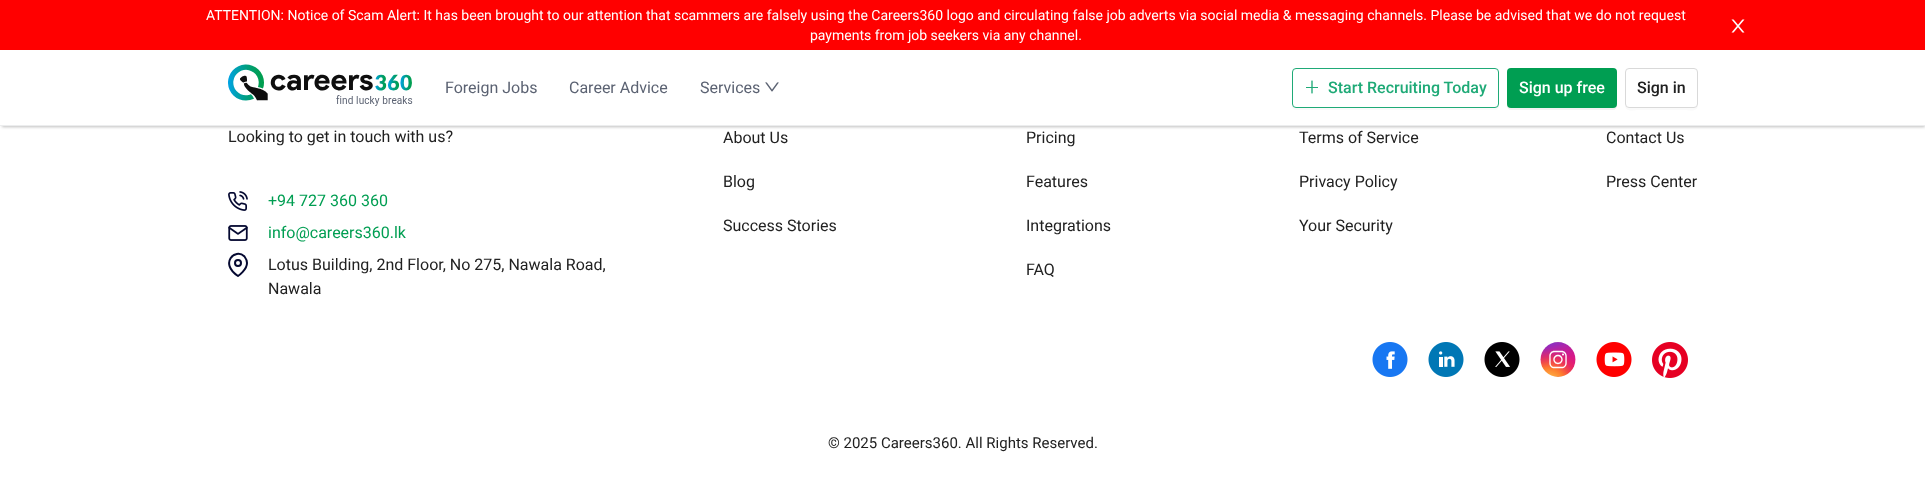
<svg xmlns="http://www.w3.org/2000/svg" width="1925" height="504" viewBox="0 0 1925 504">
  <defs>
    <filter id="blur1" x="-50%" y="-200%" width="200%" height="500%"><feGaussianBlur stdDeviation="1.5"/></filter>
  </defs>
  <rect width="100%" height="100%" fill="#ffffff"/>
  <rect x="2" y="3" width="1923" height="124" fill="#000000" fill-opacity="0.25" filter="url(#blur1)"/>
  <rect x="0" y="50" width="1925" height="75" fill="#ffffff"/>
  <rect x="0" y="125" width="1925" height="1" fill="#ecedee"/>
  <rect x="0" y="0" width="1925" height="50" fill="#ff0000"/>
  <text x="206" y="20" font-family="Roboto" font-size="14" fill="#ffffff">ATTENTION: Notice of Scam Alert: It has been brought to our attention that scammers are falsely using the Careers360 logo and circulating false job adverts via social media &amp; messaging channels. Please be advised that we do not request</text>
  <text x="810" y="40" font-family="Roboto" font-size="14" fill="#ffffff">payments from job seekers via any channel.</text>
  <image x="1731" y="19" width="14" height="14" href="img1.png"/>
  <image x="228" y="64" width="185" height="42" href="img2.png"/>
  <text x="445" y="93" font-family="Roboto" font-size="16" fill="#5b6272">Foreign Jobs</text>
  <text x="569" y="93" font-family="Roboto" font-size="16" fill="#5b6272">Career Advice</text>
  <text x="700" y="93" font-family="Roboto" font-size="16" fill="#5b6272">Services</text>
  <image x="765" y="82" width="14" height="10" href="img3.png"/>
  <path d="M1292 104C1292 107 1292 109 1295 110H1495C1499 110 1499 107 1499 104L1498 106L1496 108H1296C1294 108 1292 106 1292 104Z" fill="#fafafa"/>
  <rect x="1292.5" y="68.5" width="206" height="39" rx="3.5" fill="none" stroke="#1faa77"/>
  <image x="1306" y="80" width="12" height="14" href="img4.png"/>
  <text x="1328" y="93" font-family="Roboto" font-size="16" font-weight="500" fill="#1faa77">Start Recruiting Today</text>
  <path d="M1507 104V106C1507 108 1509 110 1511 110H1613C1615 110 1617 108 1617 106V104C1617 106 1615 108 1613 108H1511C1509 108 1507 106 1507 104Z" fill="#f2f2f2"/>
  <rect x="1507" y="68" width="110" height="40" rx="4" fill="#009e52"/>
  <text x="1519" y="93" font-family="Roboto" font-size="16" font-weight="500" fill="#ffffff">Sign up free</text>
  <path d="M1625 104C1625 113 1632 110 1640 110H1683C1691 110 1698 113 1698 104C1698 106 1696 108 1694 108H1629C1627 108 1625 106 1625 104Z" fill="#fafafa"/>
  <rect x="1625.5" y="68.5" width="72" height="39" rx="3.5" fill="none" stroke="#d9d9d9"/>
  <text x="1637" y="93" font-family="Roboto" font-size="16" font-weight="500" fill="#212121">Sign in</text>
  <text x="228" y="142" font-family="Roboto" font-size="16" fill="#212121">Looking to get in touch with us?</text>
  <image x="228" y="191" width="20" height="20" href="img5.png"/>
  <text x="268" y="206" font-family="Roboto" font-size="16" fill="#009e52">+94 727 360 360</text>
  <image x="228" y="225" width="20" height="16" href="img6.png"/>
  <text x="268" y="238" font-family="Roboto" font-size="16" fill="#009e52">info@careers360.lk</text>
  <path d="M247 263C247 270 238 276 238 276C219 263.5 235 247.5 244.5 256.5C246 258.5 247 260.5 247 263Z" fill="none" stroke="#050931" stroke-width="2" stroke-linecap="round" stroke-linejoin="round"/>
  <circle cx="238" cy="263" r="3" fill="none" stroke="#050931" stroke-width="2"/>
  <text x="268" y="270" font-family="Roboto" font-size="16" fill="#212121">Lotus Building, 2nd Floor, No 275, Nawala Road,</text>
  <text x="268" y="294" font-family="Roboto" font-size="16" fill="#212121">Nawala</text>
  <text x="723" y="143" font-family="Roboto" font-size="16" fill="#212121">About Us</text>
  <text x="723" y="187" font-family="Roboto" font-size="16" fill="#212121">Blog</text>
  <text x="723" y="231" font-family="Roboto" font-size="16" fill="#212121">Success Stories</text>
  <text x="1026" y="143" font-family="Roboto" font-size="16" fill="#212121">Pricing</text>
  <text x="1026" y="187" font-family="Roboto" font-size="16" fill="#212121">Features</text>
  <text x="1026" y="231" font-family="Roboto" font-size="16" fill="#212121">Integrations</text>
  <text x="1026" y="275" font-family="Roboto" font-size="16" fill="#212121">FAQ</text>
  <text x="1299" y="143" font-family="Roboto" font-size="16" fill="#212121">Terms of Service</text>
  <text x="1299" y="187" font-family="Roboto" font-size="16" fill="#212121">Privacy Policy</text>
  <text x="1299" y="231" font-family="Roboto" font-size="16" fill="#212121">Your Security</text>
  <text x="1606" y="143" font-family="Roboto" font-size="16" fill="#212121">Contact Us</text>
  <text x="1606" y="187" font-family="Roboto" font-size="16" fill="#212121">Press Center</text>
  <image x="1372" y="342" width="36" height="35" href="img7.png"/>
  <image x="1428" y="342" width="36" height="35" href="img8.png"/>
  <image x="1484" y="342" width="36" height="35" href="img9.png"/>
  <image x="1540" y="342" width="36" height="35" href="img10.png"/>
  <image x="1596" y="342" width="36" height="35" href="img11.png"/>
  <image x="1652" y="342" width="36" height="36" href="img12.png"/>
  <text x="828" y="448" font-family="Roboto" font-size="15" fill="#212121">© 2025 Careers360. All Rights Reserved.</text>
</svg>
